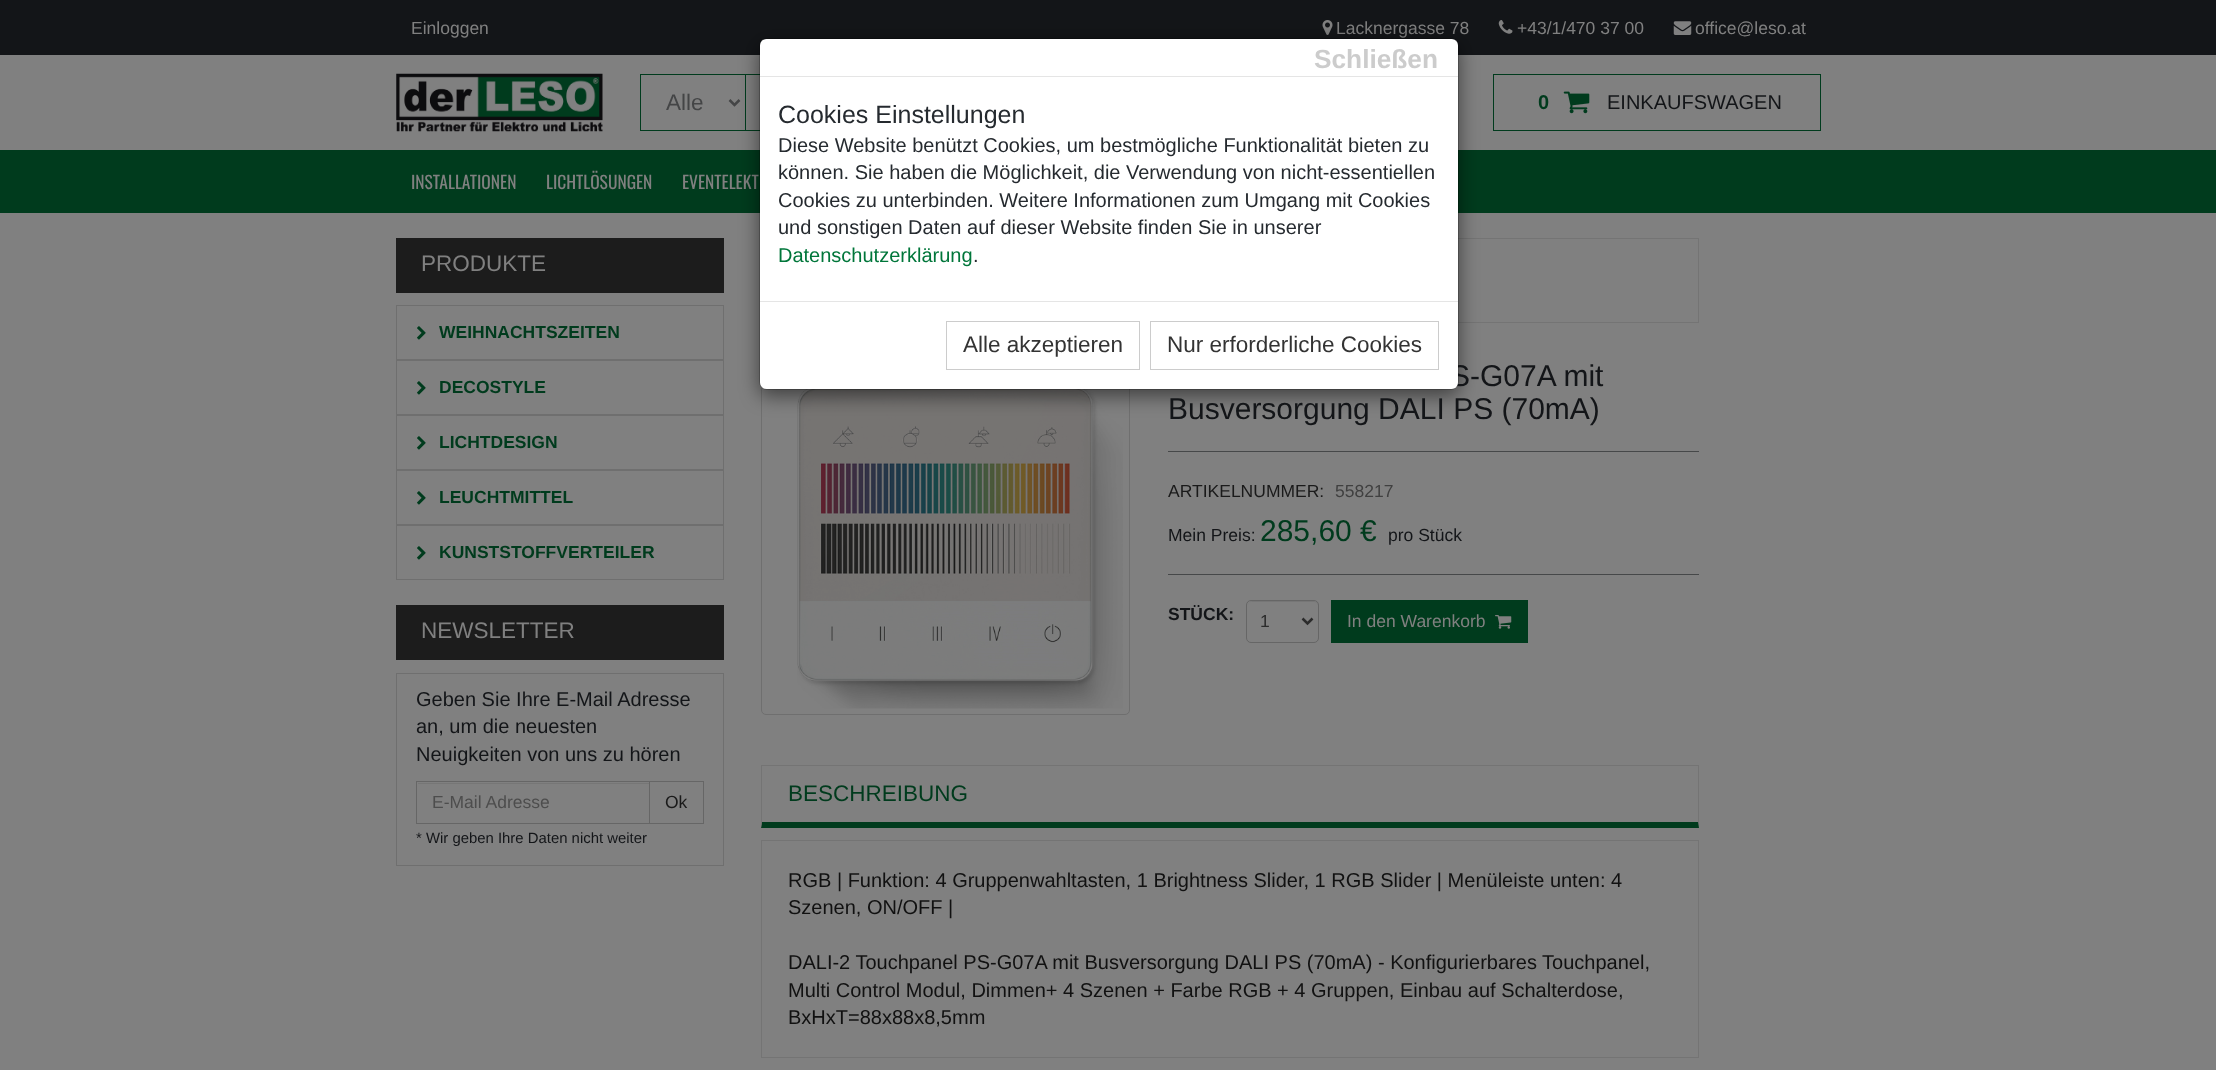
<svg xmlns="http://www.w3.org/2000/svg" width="2216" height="1070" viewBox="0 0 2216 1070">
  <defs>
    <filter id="blur1" x="-50%" y="-200%" width="200%" height="500%"><feGaussianBlur stdDeviation="9.5"/></filter>
  </defs>
  <rect width="100%" height="100%" fill="#808080"/>
  <rect x="0" y="0" width="2216" height="55" fill="#131518"/>
  <text x="411" y="34" font-family="Liberation Sans" font-size="17.5" fill="#808080">Einloggen</text>
  <image x="1322" y="20" width="11" height="15" href="img1.png"/>
  <text x="1336" y="34" font-family="Liberation Sans" font-size="17.5" fill="#808080">Lacknergasse 78</text>
  <image x="1498" y="20" width="15" height="14" href="img2.png"/>
  <text x="1517" y="34" font-family="Liberation Sans" font-size="17.5" fill="#808080">+43/1/470 37 00</text>
  <image x="1673" y="21" width="19" height="14" href="img3.png"/>
  <text x="1695" y="34" font-family="Liberation Sans" font-size="17.5" fill="#808080">office@leso.at</text>
  <image x="396" y="73" width="207" height="59" href="img4.png"/>
  <rect x="640" y="74" width="120" height="1" fill="#003b1d"/>
  <rect x="640" y="130" width="120" height="1" fill="#003b1d"/>
  <rect x="640" y="74" width="1" height="57" fill="#003b1d"/>
  <path d="M729.5 100L734.5 105L739.5 100" fill="none" stroke="#444546" stroke-width="2.5"/>
  <text x="666" y="110" font-family="Liberation Sans" font-size="22.5" fill="#444546">Alle</text>
  <rect x="745" y="74" width="1" height="57" fill="#003b1d"/>
  <rect x="1493.5" y="74.5" width="327" height="56" fill="none" stroke="#003b1d"/>
  <text x="1538" y="109" font-family="Liberation Sans" font-size="20" font-weight="bold" fill="#003b1d">0</text>
  <image x="1563" y="91" width="27" height="23" href="img5.png"/>
  <text x="1607" y="109" font-family="Liberation Sans" font-size="20" fill="#131518">EINKAUFSWAGEN</text>
  <rect x="0" y="150" width="2216" height="63" fill="#003b1d"/>
  <text x="411" y="189" font-family="Oswald" font-size="17.5" fill="#808080">INSTALLATIONEN</text>
  <text x="546" y="189" font-family="Oswald" font-size="17.5" fill="#808080">LICHTLÖSUNGEN</text>
  <text x="682" y="189" font-family="Oswald" font-size="17.5" fill="#808080">EVENTELEKT</text>
  <rect x="761.5" y="238.5" width="937" height="84" fill="none" stroke="#747474"/>
  <rect x="761.5" y="360.5" width="368" height="354" rx="4.5" fill="none" stroke="#6f6f6f"/>
  <image x="797" y="389" width="326" height="320" href="img7.png"/>
  <rect x="759" y="44" width="700" height="352" rx="8" fill="#000000" fill-opacity="0.5" filter="url(#blur1)"/>
  <text x="1450" y="386" font-family="Liberation Sans" font-size="30" fill="#131518">S-G07A mit</text>
  <rect x="760" y="39" width="698" height="350" rx="6" fill="#ffffff"/>
  <rect x="759.5" y="38.5" width="699" height="351" rx="7.5" fill="none" stroke="#000000" stroke-opacity="0.2"/>
  <rect x="760" y="76" width="698" height="1" fill="#e5e5e5"/>
  <text x="1314" y="68" font-family="Liberation Sans" font-size="26.25" font-weight="bold" fill="#cccccc">Schließen</text>
  <text x="778" y="123" font-family="Liberation Sans" font-size="25" fill="#252a2f">Cookies Einstellungen</text>
  <text x="778" y="152" font-family="Liberation Sans" font-size="20" fill="#252a2f">Diese Website benützt Cookies, um bestmögliche Funktionalität bieten zu</text>
  <text x="778" y="179" font-family="Liberation Sans" font-size="20" fill="#252a2f">können. Sie haben die Möglichkeit, die Verwendung von nicht-essentiellen</text>
  <text x="778" y="207" font-family="Liberation Sans" font-size="20" fill="#252a2f">Cookies zu unterbinden. Weitere Informationen zum Umgang mit Cookies</text>
  <text x="778" y="234" font-family="Liberation Sans" font-size="20" fill="#252a2f">und sonstigen Daten auf dieser Website finden Sie in unserer</text>
  <text x="778" y="262" font-family="Liberation Sans" font-size="20" fill="#00763a">Datenschutzerklärung</text>
  <text x="973" y="262" font-family="Liberation Sans" font-size="20" fill="#252a2f">.</text>
  <rect x="760" y="301" width="698" height="1" fill="#e5e5e5"/>
  <rect x="946.5" y="321.5" width="193" height="48" fill="none" stroke="#cccccc"/>
  <text x="963" y="352" font-family="Liberation Sans" font-size="22.5" fill="#333333">Alle akzeptieren</text>
  <rect x="1150.5" y="321.5" width="288" height="48" fill="none" stroke="#cccccc"/>
  <text x="1167" y="352" font-family="Liberation Sans" font-size="22.5" fill="#333333">Nur erforderliche Cookies</text>
  <rect x="396" y="238" width="328" height="55" fill="#1c1c1c"/>
  <text x="421" y="271" font-family="Liberation Sans" font-size="22.5" fill="#808080">PRODUKTE</text>
  <rect x="396.5" y="305.5" width="327" height="54" fill="none" stroke="#6f6f6f"/>
  <image x="417" y="326" width="9" height="14" href="img6.png"/>
  <text x="439" y="338" font-family="Liberation Sans" font-size="17.5" font-weight="bold" fill="#003b1d">WEIHNACHTSZEITEN</text>
  <rect x="396.5" y="360.5" width="327" height="54" fill="none" stroke="#6f6f6f"/>
  <image x="417" y="381" width="9" height="14" href="img6.png"/>
  <text x="439" y="393" font-family="Liberation Sans" font-size="17.5" font-weight="bold" fill="#003b1d">DECOSTYLE</text>
  <rect x="396.5" y="415.5" width="327" height="54" fill="none" stroke="#6f6f6f"/>
  <image x="417" y="436" width="9" height="14" href="img6.png"/>
  <text x="439" y="448" font-family="Liberation Sans" font-size="17.5" font-weight="bold" fill="#003b1d">LICHTDESIGN</text>
  <rect x="396.5" y="470.5" width="327" height="54" fill="none" stroke="#6f6f6f"/>
  <image x="417" y="491" width="9" height="14" href="img6.png"/>
  <text x="439" y="503" font-family="Liberation Sans" font-size="17.5" font-weight="bold" fill="#003b1d">LEUCHTMITTEL</text>
  <rect x="396.5" y="525.5" width="327" height="54" fill="none" stroke="#6f6f6f"/>
  <image x="417" y="546" width="9" height="14" href="img6.png"/>
  <text x="439" y="558" font-family="Liberation Sans" font-size="17.5" font-weight="bold" fill="#003b1d">KUNSTSTOFFVERTEILER</text>
  <rect x="396" y="605" width="328" height="55" fill="#1c1c1c"/>
  <text x="421" y="638" font-family="Liberation Sans" font-size="22.5" fill="#808080">NEWSLETTER</text>
  <rect x="396.5" y="673.5" width="327" height="192" fill="none" stroke="#6f6f6f"/>
  <text x="416" y="706" font-family="Liberation Sans" font-size="20" fill="#131518">Geben Sie Ihre E-Mail Adresse</text>
  <text x="416" y="733" font-family="Liberation Sans" font-size="20" fill="#131518">an, um die neuesten</text>
  <text x="416" y="761" font-family="Liberation Sans" font-size="20" fill="#131518">Neuigkeiten von uns zu hören</text>
  <rect x="418" y="783" width="231" height="1" fill="#767676"/>
  <rect x="649.5" y="781.5" width="54" height="42" fill="none" stroke="#666666"/>
  <rect x="416.5" y="781.5" width="233" height="42" fill="none" stroke="#666666"/>
  <text x="432" y="808" font-family="Liberation Sans" font-size="17.5" fill="#4d4d4d">E-Mail Adresse</text>
  <text x="665" y="808" font-family="Liberation Sans" font-size="17.5" fill="#1a1a1a">Ok</text>
  <text x="416" y="843" font-family="Liberation Sans" font-size="14.9" fill="#131518">* Wir geben Ihre Daten nicht weiter</text>
  <text x="1168" y="419" font-family="Liberation Sans" font-size="30" fill="#131518">Busversorgung DALI PS (70mA)</text>
  <rect x="1168" y="451" width="531" height="1" fill="#464849"/>
  <text x="1168" y="497" font-family="Liberation Sans" font-size="17.5" fill="#1a1a1a">ARTIKELNUMMER:</text>
  <text x="1335" y="497" font-family="Liberation Sans" font-size="17.5" fill="#404040">558217</text>
  <text x="1168" y="541" font-family="Liberation Sans" font-size="17.5" fill="#131518">Mein Preis:</text>
  <text x="1260" y="541" font-family="Liberation Sans" font-size="30" fill="#003b1d">285,60 €</text>
  <text x="1388" y="541" font-family="Liberation Sans" font-size="17.5" fill="#131518">pro Stück</text>
  <rect x="1168" y="574" width="531" height="1" fill="#464849"/>
  <text x="1168" y="620" font-family="Liberation Sans" font-size="17.5" font-weight="bold" fill="#131518">STÜCK:</text>
  <path d="M1251 602H1314C1316 602 1318 604 1318 606C1318 599 1309 601 1304 601H1262C1257 601 1248 599 1248 606C1248 604 1249 602 1251 602Z" fill="#767676"/>
  <rect x="1246.5" y="600.5" width="72" height="42" rx="4.5" fill="none" stroke="#666666"/>
  <path d="M1302.5 618.5L1307.5 623.5L1312.5 618.5" fill="none" stroke="#2b2b2b" stroke-width="2.5"/>
  <text x="1260" y="627" font-family="Liberation Sans" font-size="17.5" fill="#2b2b2b">1</text>
  <rect x="1331" y="600" width="197" height="43" fill="#003b1d"/>
  <text x="1347" y="627" font-family="Liberation Sans" font-size="17.5" fill="#808080">In den Warenkorb</text>
  <image x="1495" y="615" width="17" height="14" href="img8.png"/>
  <rect x="761" y="765" width="938" height="1" fill="#747474"/>
  <path d="M1699 765V828L1698 822V766Z" fill="#747474"/>
  <path d="M1699 828H761L762 822H1698Z" fill="#003b1d"/>
  <path d="M761 828V765L762 766V822Z" fill="#747474"/>
  <text x="788" y="801" font-family="Liberation Sans" font-size="22.5" fill="#003b1d">BESCHREIBUNG</text>
  <rect x="761.5" y="840.5" width="937" height="217" fill="none" stroke="#747474"/>
  <text x="788" y="887" font-family="Liberation Sans" font-size="20" fill="#111111">RGB | Funktion: 4 Gruppenwahltasten, 1 Brightness Slider, 1 RGB Slider | Menüleiste unten: 4</text>
  <text x="788" y="914" font-family="Liberation Sans" font-size="20" fill="#111111">Szenen, ON/OFF |</text>
  <text x="788" y="969" font-family="Liberation Sans" font-size="20" fill="#111111">DALI-2 Touchpanel PS-G07A mit Busversorgung DALI PS (70mA) - Konfigurierbares Touchpanel,</text>
  <text x="788" y="997" font-family="Liberation Sans" font-size="20" fill="#111111">Multi Control Modul, Dimmen+ 4 Szenen + Farbe RGB + 4 Gruppen, Einbau auf Schalterdose,</text>
  <text x="788" y="1024" font-family="Liberation Sans" font-size="20" fill="#111111">BxHxT=88x88x8,5mm</text>
</svg>
